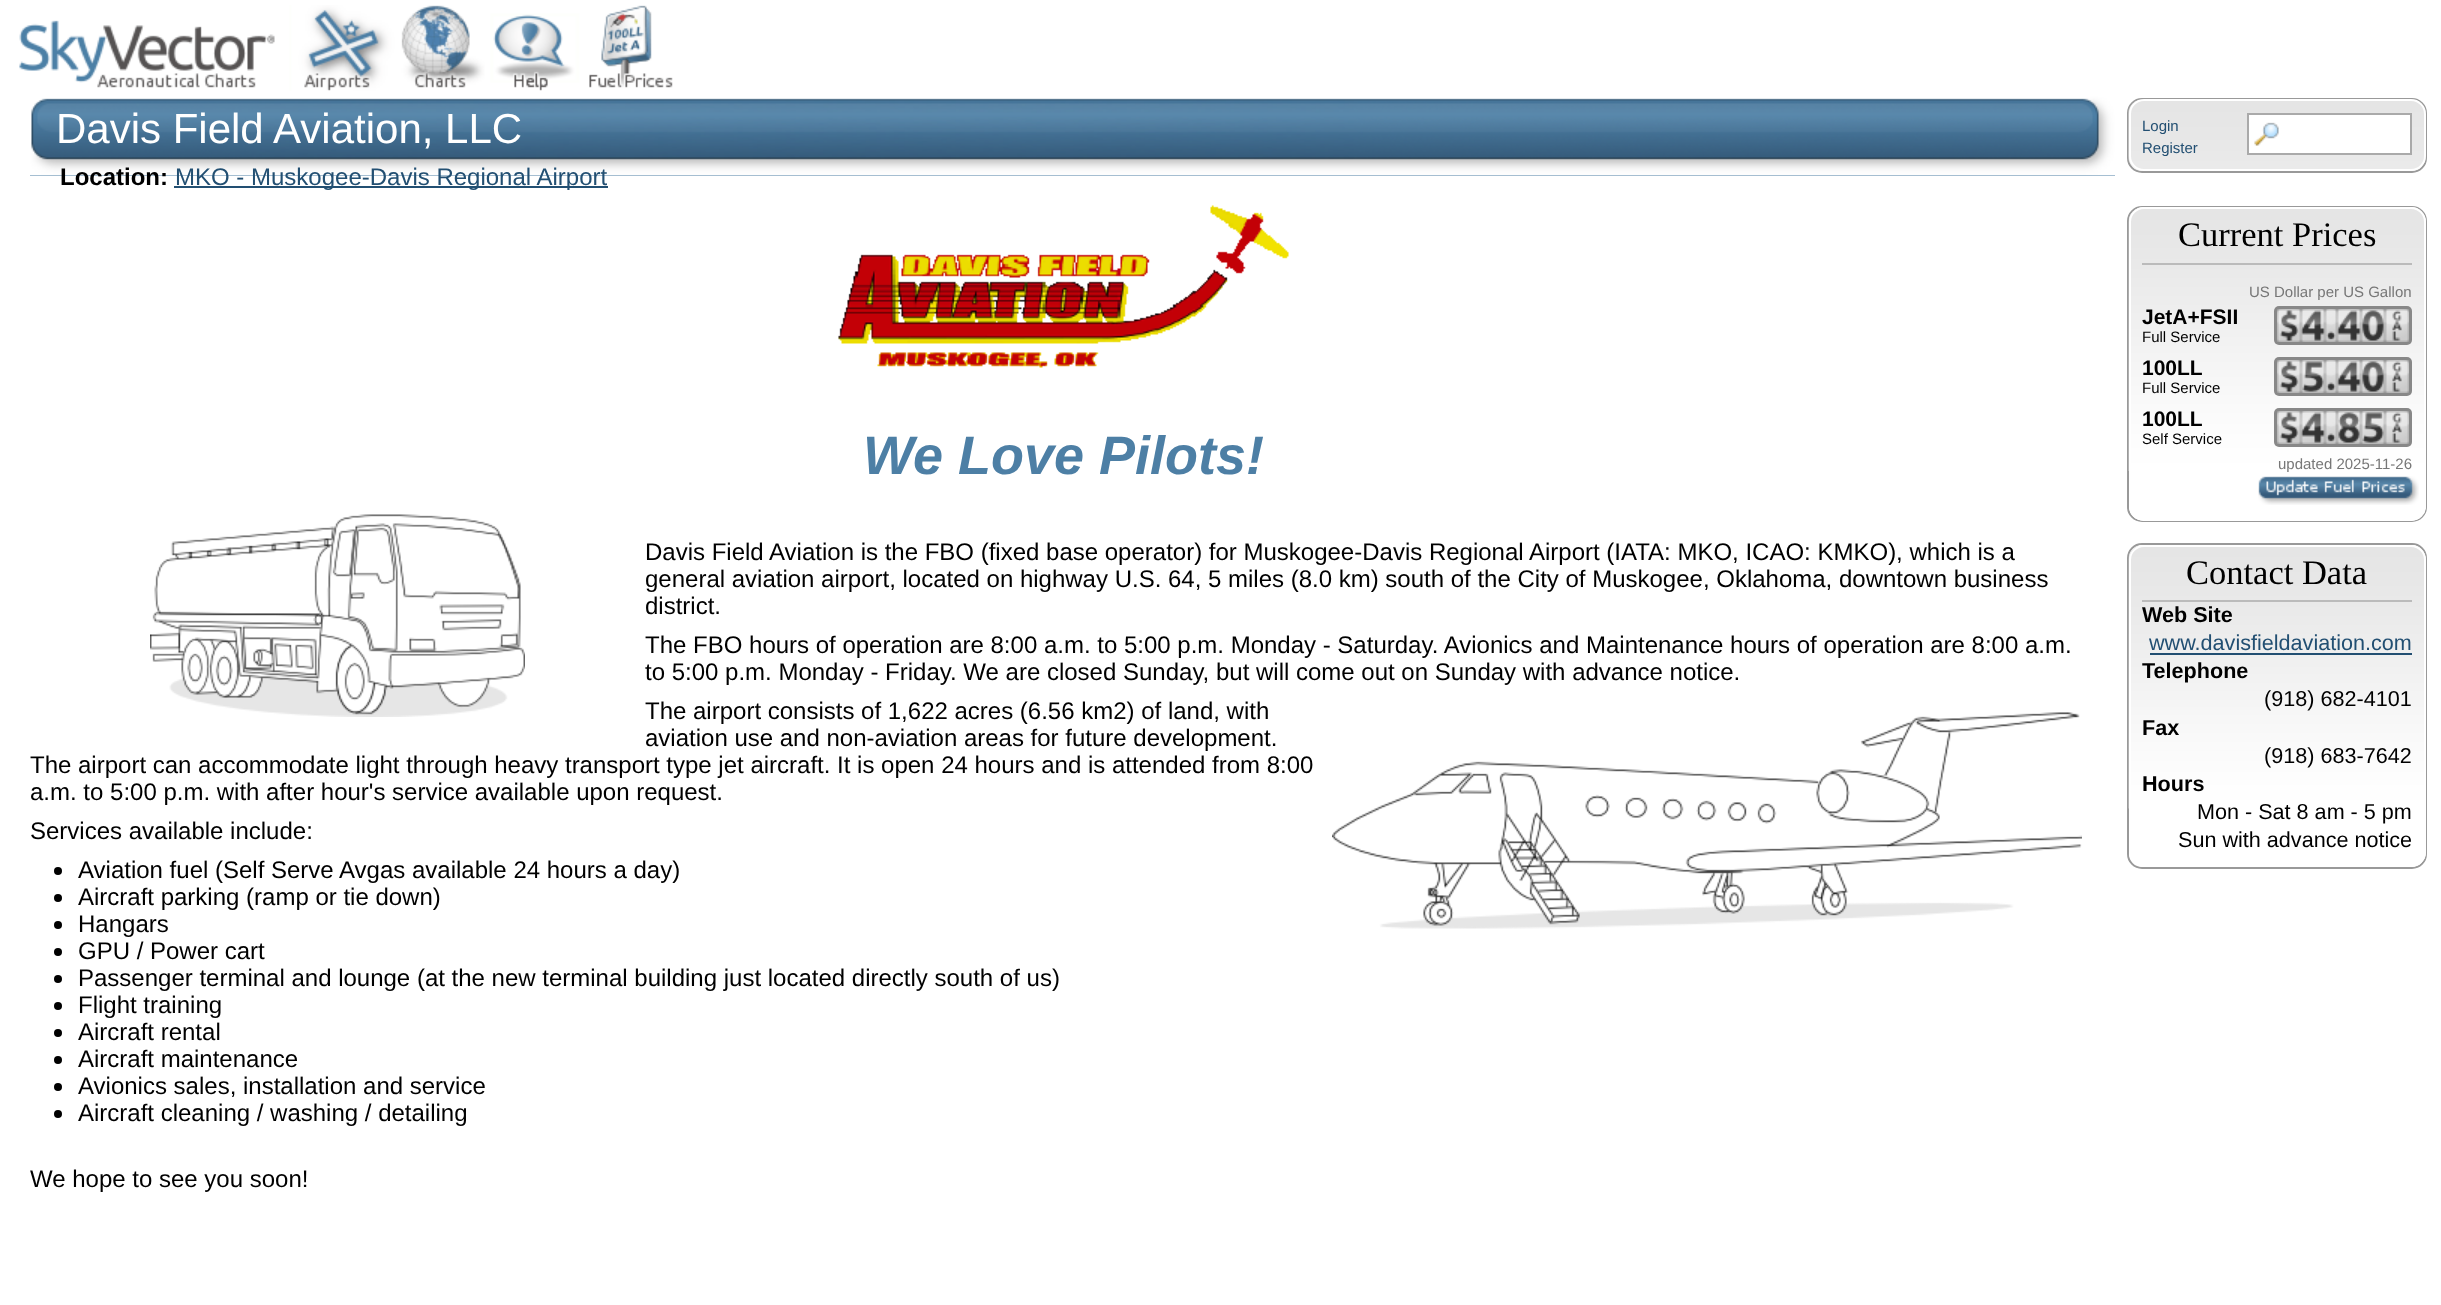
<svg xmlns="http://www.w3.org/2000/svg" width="2441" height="1305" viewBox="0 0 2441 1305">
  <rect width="100%" height="100%" fill="#ffffff"/>
  <image x="19" y="5" width="654" height="86" href="img1.png"/>
  <rect x="30" y="175" width="2085" height="1" fill="#4d7fa5"/>
  <image x="30" y="96" width="30" height="80" href="img2.png"/>
  <image x="60" y="96" width="2055" height="80" href="img3.png"/>
  <text x="56" y="143" font-family="Liberation Sans" font-size="42" fill="#ffffff">Davis Field Aviation, LLC</text>
  <rect x="2128" y="99" width="298" height="73" rx="14" fill="none" stroke="#999999" stroke-width="2"/>
  <image x="2128" y="100" width="298" height="71" href="img4.png"/>
  <rect x="2130" y="100" width="295" height="70" rx="14" fill="none" stroke="#ffffff" stroke-width="2"/>
  <text x="2142" y="131" font-family="Liberation Sans" font-size="15" fill="#224f72">Login</text>
  <rect x="2249" y="115" width="161" height="38" fill="#ffffff"/>
  <image x="2254" y="122" width="25" height="24" href="img5.png"/>
  <rect x="2248" y="114" width="163" height="40" fill="none" stroke="#aaaaaa" stroke-width="2"/>
  <text x="2142" y="153" font-family="Liberation Sans" font-size="15" fill="#224f72">Register</text>
  <text x="60" y="185" font-family="Liberation Sans" font-size="24" font-weight="bold" fill="#000000">Location:</text>
  <rect x="174" y="186" width="434" height="2" fill="#224f72"/>
  <text x="175" y="185" font-family="Liberation Sans" font-size="24" fill="#224f72">MKO - Muskogee-Davis Regional Airport</text>
  <image x="838" y="205" width="451" height="163" href="img6.png"/>
  <text x="863" y="474" font-family="Liberation Sans" font-size="54" font-weight="bold" font-style="italic" fill="#4d7fa5">We Love Pilots!</text>
  <image x="150" y="514" width="375" height="203" href="img7.png"/>
  <text x="645" y="560" font-family="Liberation Sans" font-size="24" fill="#000000">Davis Field Aviation is the FBO (fixed base operator) for Muskogee-Davis Regional Airport (IATA: MKO, ICAO: KMKO), which is a</text>
  <text x="645" y="587" font-family="Liberation Sans" font-size="24" fill="#000000">general aviation airport, located on highway U.S. 64, 5 miles (8.0 km) south of the City of Muskogee, Oklahoma, downtown business</text>
  <text x="645" y="614" font-family="Liberation Sans" font-size="24" fill="#000000">district.</text>
  <text x="645" y="653" font-family="Liberation Sans" font-size="24" fill="#000000">The FBO hours of operation are 8:00 a.m. to 5:00 p.m. Monday - Saturday. Avionics and Maintenance hours of operation are 8:00 a.m.</text>
  <text x="645" y="680" font-family="Liberation Sans" font-size="24" fill="#000000">to 5:00 p.m. Monday - Friday. We are closed Sunday, but will come out on Sunday with advance notice.</text>
  <text x="645" y="719" font-family="Liberation Sans" font-size="24" fill="#000000">The airport consists of 1,622 acres (6.56 km2) of land, with</text>
  <text x="645" y="746" font-family="Liberation Sans" font-size="24" fill="#000000">aviation use and non-aviation areas for future development.</text>
  <text x="30" y="773" font-family="Liberation Sans" font-size="24" fill="#000000">The airport can accommodate light through heavy transport type jet aircraft. It is open 24 hours and is attended from 8:00</text>
  <text x="30" y="800" font-family="Liberation Sans" font-size="24" fill="#000000">a.m. to 5:00 p.m. with after hour's service available upon request.</text>
  <image x="1332" y="712" width="750" height="217" href="img8.png"/>
  <text x="30" y="839" font-family="Liberation Sans" font-size="24" fill="#000000">Services available include:</text>
  <circle cx="58" cy="871" r="4" fill="#000000"/>
  <text x="78" y="878" font-family="Liberation Sans" font-size="24" fill="#000000">Aviation fuel (Self Serve Avgas available 24 hours a day)</text>
  <circle cx="58" cy="898" r="4" fill="#000000"/>
  <text x="78" y="905" font-family="Liberation Sans" font-size="24" fill="#000000">Aircraft parking (ramp or tie down)</text>
  <circle cx="58" cy="925" r="4" fill="#000000"/>
  <text x="78" y="932" font-family="Liberation Sans" font-size="24" fill="#000000">Hangars</text>
  <circle cx="58" cy="952" r="4" fill="#000000"/>
  <text x="78" y="959" font-family="Liberation Sans" font-size="24" fill="#000000">GPU / Power cart</text>
  <circle cx="58" cy="979" r="4" fill="#000000"/>
  <text x="78" y="986" font-family="Liberation Sans" font-size="24" fill="#000000">Passenger terminal and lounge (at the new terminal building just located directly south of us)</text>
  <circle cx="58" cy="1006" r="4" fill="#000000"/>
  <text x="78" y="1013" font-family="Liberation Sans" font-size="24" fill="#000000">Flight training</text>
  <circle cx="58" cy="1033" r="4" fill="#000000"/>
  <text x="78" y="1040" font-family="Liberation Sans" font-size="24" fill="#000000">Aircraft rental</text>
  <circle cx="58" cy="1060" r="4" fill="#000000"/>
  <text x="78" y="1067" font-family="Liberation Sans" font-size="24" fill="#000000">Aircraft maintenance</text>
  <circle cx="58" cy="1087" r="4" fill="#000000"/>
  <text x="78" y="1094" font-family="Liberation Sans" font-size="24" fill="#000000">Avionics sales, installation and service</text>
  <circle cx="58" cy="1114" r="4" fill="#000000"/>
  <text x="78" y="1121" font-family="Liberation Sans" font-size="24" fill="#000000">Aircraft cleaning / washing / detailing</text>
  <text x="30" y="1187" font-family="Liberation Sans" font-size="24" fill="#000000">We hope to see you soon!</text>
  <rect x="2128" y="207" width="298" height="314" rx="14" fill="none" stroke="#999999" stroke-width="2"/>
  <rect x="2129" y="207" width="297" height="314" rx="15" fill="#ffffff"/>
  <image x="2128" y="208" width="298" height="263" href="img9.png"/>
  <rect x="2130" y="208" width="295" height="312" rx="14" fill="none" stroke="#ffffff" stroke-width="2"/>
  <rect x="2142" y="263" width="270" height="2" fill="#bbbbbb"/>
  <text x="2178" y="246" font-family="Liberation Serif" font-size="34.5" fill="#000000">Current Prices</text>
  <text x="2249" y="297" font-family="Liberation Sans" font-size="15" fill="#777777">US Dollar per US Gallon</text>
  <text x="2142" y="324" font-family="Liberation Sans" font-size="21" font-weight="bold" fill="#000000">JetA+FSII</text>
  <rect x="2274" y="306" width="138" height="39" rx="5" fill="#888888"/>
  <image x="2277" y="309" width="24" height="33" href="img10.png"/>
  <image x="2301" y="309" width="24" height="33" href="img11.png"/>
  <image x="2325" y="309" width="12" height="33" href="img12.png"/>
  <image x="2337" y="309" width="24" height="33" href="img11.png"/>
  <image x="2361" y="309" width="24" height="33" href="img13.png"/>
  <image x="2385" y="309" width="24" height="33" href="img14.png"/>
  <text x="2142" y="342" font-family="Liberation Sans" font-size="15" fill="#000000">Full Service</text>
  <text x="2142" y="375" font-family="Liberation Sans" font-size="21" font-weight="bold" fill="#000000">100LL</text>
  <rect x="2274" y="357" width="138" height="39" rx="5" fill="#888888"/>
  <image x="2277" y="360" width="24" height="33" href="img10.png"/>
  <image x="2301" y="360" width="24" height="33" href="img15.png"/>
  <image x="2325" y="360" width="12" height="33" href="img12.png"/>
  <image x="2337" y="360" width="24" height="33" href="img11.png"/>
  <image x="2361" y="360" width="24" height="33" href="img13.png"/>
  <image x="2385" y="360" width="24" height="33" href="img14.png"/>
  <text x="2142" y="393" font-family="Liberation Sans" font-size="15" fill="#000000">Full Service</text>
  <text x="2142" y="426" font-family="Liberation Sans" font-size="21" font-weight="bold" fill="#000000">100LL</text>
  <rect x="2274" y="408" width="138" height="39" rx="5" fill="#888888"/>
  <image x="2277" y="411" width="24" height="33" href="img10.png"/>
  <image x="2301" y="411" width="24" height="33" href="img11.png"/>
  <image x="2325" y="411" width="12" height="33" href="img12.png"/>
  <image x="2337" y="411" width="24" height="33" href="img16.png"/>
  <image x="2361" y="411" width="24" height="33" href="img15.png"/>
  <image x="2385" y="411" width="24" height="33" href="img14.png"/>
  <text x="2142" y="444" font-family="Liberation Sans" font-size="15" fill="#000000">Self Service</text>
  <text x="2278" y="469" font-family="Liberation Sans" font-size="15" fill="#777777">updated 2025-11-26</text>
  <image x="2258" y="476" width="161" height="29" href="img17.png"/>
  <rect x="2128" y="544" width="298" height="324" rx="14" fill="none" stroke="#999999" stroke-width="2"/>
  <rect x="2129" y="545" width="297" height="322" rx="15" fill="#ffffff"/>
  <image x="2128" y="546" width="298" height="263" href="img18.png"/>
  <rect x="2130" y="546" width="295" height="320" rx="14" fill="none" stroke="#ffffff" stroke-width="2"/>
  <rect x="2142" y="600" width="270" height="2" fill="#bbbbbb"/>
  <text x="2186" y="584" font-family="Liberation Serif" font-size="34.5" fill="#000000">Contact Data</text>
  <text x="2142" y="622" font-family="Liberation Sans" font-size="21.6" font-weight="bold" fill="#000000">Web Site</text>
  <text x="2149" y="650" font-family="Liberation Sans" font-size="21.6" fill="#224f72">www.davisfieldaviation.com</text>
  <rect x="2150" y="653" width="262" height="2" fill="#224f72"/>
  <text x="2142" y="678" font-family="Liberation Sans" font-size="21.6" font-weight="bold" fill="#000000">Telephone</text>
  <text x="2264" y="706" font-family="Liberation Sans" font-size="21.6" fill="#000000">(918) 682-4101</text>
  <text x="2142" y="735" font-family="Liberation Sans" font-size="21.6" font-weight="bold" fill="#000000">Fax</text>
  <text x="2264" y="763" font-family="Liberation Sans" font-size="21.6" fill="#000000">(918) 683-7642</text>
  <text x="2142" y="791" font-family="Liberation Sans" font-size="21.6" font-weight="bold" fill="#000000">Hours</text>
  <text x="2197" y="819" font-family="Liberation Sans" font-size="21.6" fill="#000000">Mon - Sat 8 am - 5 pm</text>
  <text x="2178" y="847" font-family="Liberation Sans" font-size="21.6" fill="#000000">Sun with advance notice</text>
</svg>
